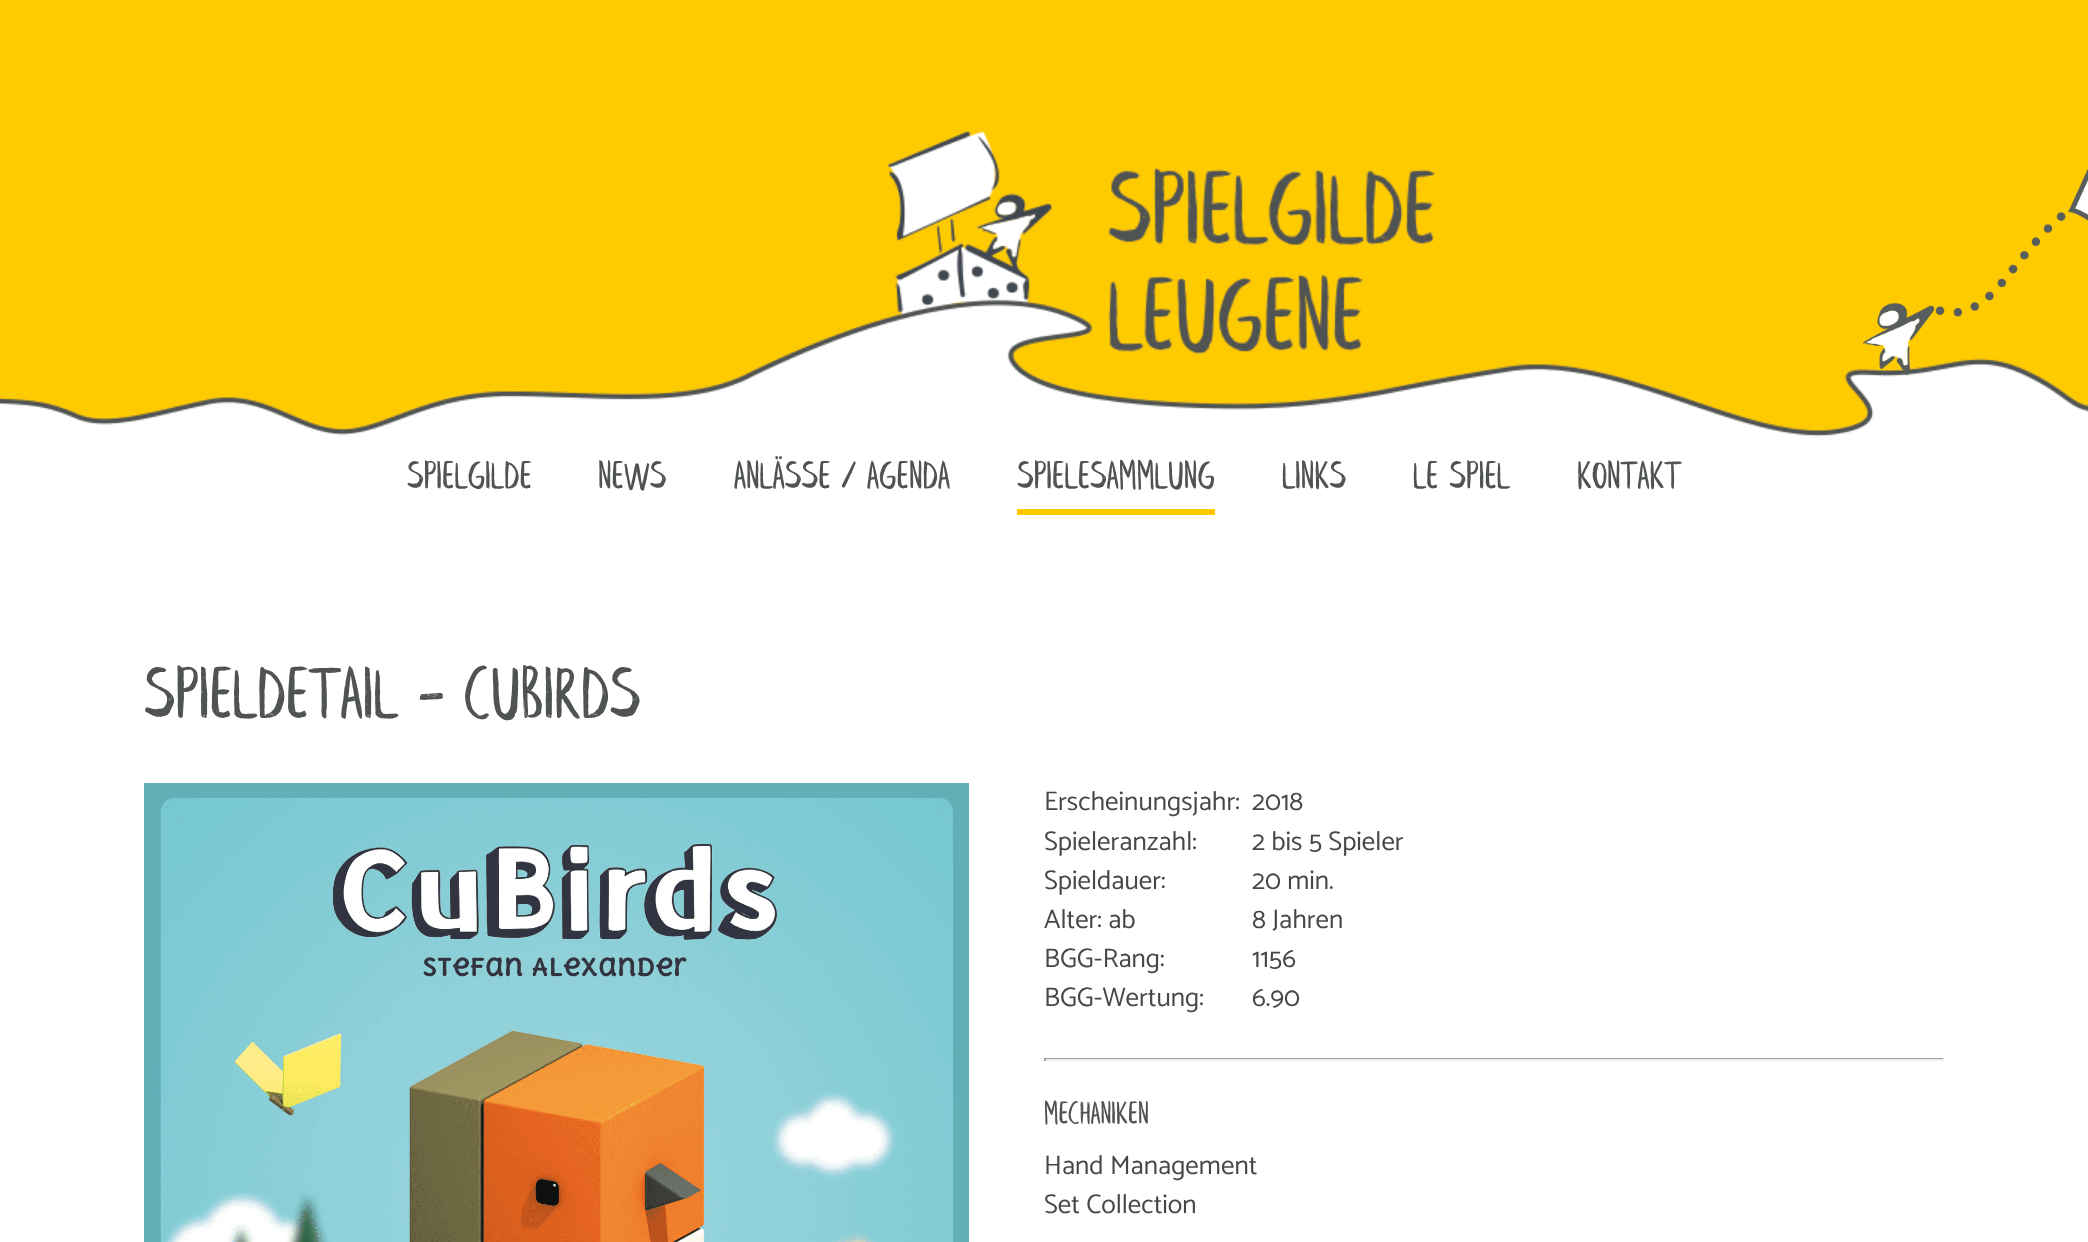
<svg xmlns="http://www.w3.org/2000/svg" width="2088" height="1242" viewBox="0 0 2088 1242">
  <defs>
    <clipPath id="clip1"><rect x="144" y="665" width="1800" height="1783"/></clipPath>
  </defs>
  <rect width="100%" height="100%" fill="#ffffff"/>
  <image x="0" y="0" width="2088" height="437" href="img1.png"/>
  <image x="1863" y="169" width="225" height="206" href="img2.png"/>
  <text x="407" y="489" font-family="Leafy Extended" font-size="40.5" fill="#4f5352">SPIELGILDE</text>
  <text x="598" y="489" font-family="Leafy Extended" font-size="40.5" fill="#4f5352">NEWS</text>
  <text x="734" y="489" font-family="Leafy Extended" font-size="40.5" fill="#4f5352">ANLÄSSE / AGENDA</text>
  <rect x="1017" y="509" width="198" height="6" fill="#ffc800"/>
  <text x="1017" y="489" font-family="Leafy Extended" font-size="40.5" fill="#4f5352">SPIELESAMMLUNG</text>
  <text x="1282" y="489" font-family="Leafy Extended" font-size="40.5" fill="#4f5352">LINKS</text>
  <text x="1413" y="489" font-family="Leafy Extended" font-size="40.5" fill="#4f5352">LE SPIEL</text>
  <text x="1577" y="489" font-family="Leafy Extended" font-size="40.5" fill="#4f5352">KONTAKT</text>
  <g clip-path="url(#clip1)">
    <text x="144" y="719" font-family="Leafy Extended" font-size="75.5" fill="#4f5352">SPIELDETAIL - CUBIRDS</text>
  </g>
  <image x="144" y="783" width="825" height="459" href="img3.png"/>
  <text x="1044" y="810" font-family="Catamaran" font-size="27" font-weight="100" fill="#4a4646">Erscheinungsjahr:</text>
  <text x="1252" y="810" font-family="Catamaran" font-size="27" font-weight="100" fill="#4a4646">2018</text>
  <text x="1044" y="850" font-family="Catamaran" font-size="27" font-weight="100" fill="#4a4646">Spieleranzahl:</text>
  <text x="1252" y="850" font-family="Catamaran" font-size="27" font-weight="100" fill="#4a4646">2 bis 5 Spieler</text>
  <text x="1044" y="889" font-family="Catamaran" font-size="27" font-weight="100" fill="#4a4646">Spieldauer:</text>
  <text x="1252" y="889" font-family="Catamaran" font-size="27" font-weight="100" fill="#4a4646">20 min.</text>
  <text x="1044" y="928" font-family="Catamaran" font-size="27" font-weight="100" fill="#4a4646">Alter: ab</text>
  <text x="1252" y="928" font-family="Catamaran" font-size="27" font-weight="100" fill="#4a4646">8 Jahren</text>
  <text x="1044" y="967" font-family="Catamaran" font-size="27" font-weight="100" fill="#4a4646">BGG-Rang:</text>
  <text x="1252" y="967" font-family="Catamaran" font-size="27" font-weight="100" fill="#4a4646">1156</text>
  <text x="1044" y="1006" font-family="Catamaran" font-size="27" font-weight="100" fill="#4a4646">BGG-Wertung:</text>
  <text x="1252" y="1006" font-family="Catamaran" font-size="27" font-weight="100" fill="#4a4646">6.90</text>
  <rect x="1044" y="1058" width="900" height="1" fill="#9f9f9f"/>
  <rect x="1943" y="1058" width="1" height="3" fill="#eeeeee"/>
  <rect x="1044" y="1059" width="900" height="2" fill="#eeeeee"/>
  <rect x="1044" y="1058" width="2" height="3" fill="#9f9f9f"/>
  <text x="1044" y="1124" font-family="Leafy Extended" font-size="32.5" fill="#4f5352">MECHANIKEN</text>
  <text x="1044" y="1174" font-family="Catamaran" font-size="27" font-weight="100" fill="#4a4646">Hand Management</text>
  <text x="1044" y="1213" font-family="Catamaran" font-size="27" font-weight="100" fill="#4a4646">Set Collection</text>
</svg>
